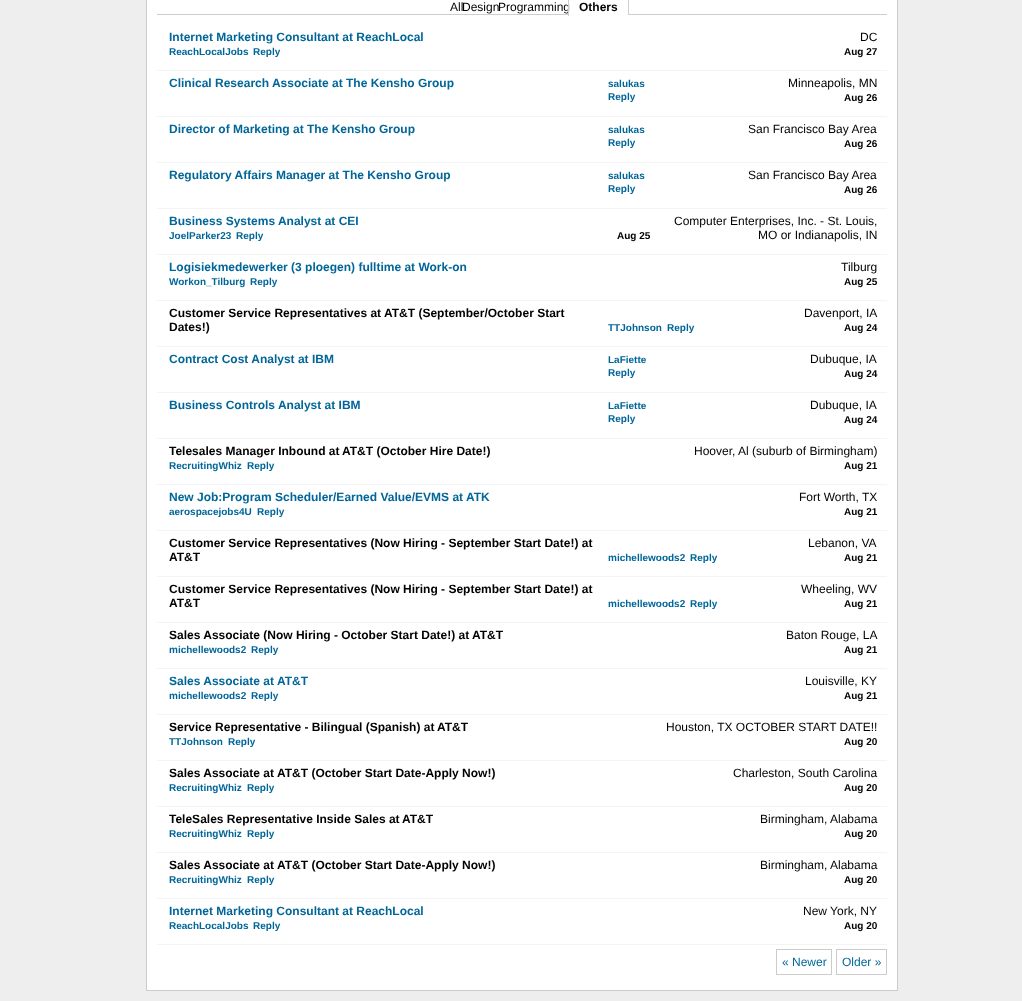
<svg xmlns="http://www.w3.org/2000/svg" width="1022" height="1001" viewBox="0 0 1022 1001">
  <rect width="100%" height="100%" fill="#eeeeee"/>
  <rect x="146.5" y="-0.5" width="751" height="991" fill="#ffffff" stroke="#cccccc"/>
  <text x="450" y="11" font-family="Liberation Sans" font-size="12" fill="#000000">All</text>
  <text x="462" y="11" font-family="Liberation Sans" font-size="12" fill="#000000">Design</text>
  <text x="498" y="11" font-family="Liberation Sans" font-size="12" fill="#000000">Programming</text>
  <text x="579" y="11" font-family="Liberation Sans" font-size="12" font-weight="bold" fill="#000000">Others</text>
  <rect x="157" y="14" width="730" height="1" fill="#cecece"/>
  <rect x="569" y="14" width="59" height="1" fill="#ffffff"/>
  <rect x="628" y="0" width="1" height="16" fill="#cecece"/>
  <rect x="628" y="15" width="1" height="1" fill="#ffffff"/>
  <rect x="568" y="0" width="1" height="16" fill="#cecece"/>
  <rect x="157" y="70" width="730" height="1" fill="#f4f4f4"/>
  <text x="169" y="41" font-family="Liberation Sans" font-size="12" font-weight="bold" fill="#006699">Internet Marketing Consultant at ReachLocal</text>
  <text x="860" y="41" font-family="Liberation Sans" font-size="12" fill="#000000">DC</text>
  <text x="169" y="55" font-family="Liberation Sans" font-size="10" font-weight="bold" fill="#006699">ReachLocalJobs</text>
  <text x="253" y="55" font-family="Liberation Sans" font-size="10" font-weight="bold" fill="#006699">Reply</text>
  <text x="844" y="55" font-family="Liberation Sans" font-size="10" font-weight="bold" fill="#000000">Aug 27</text>
  <rect x="157" y="116" width="730" height="1" fill="#f4f4f4"/>
  <text x="169" y="87" font-family="Liberation Sans" font-size="12" font-weight="bold" fill="#006699">Clinical Research Associate at The Kensho Group</text>
  <text x="608" y="87" font-family="Liberation Sans" font-size="10" font-weight="bold" fill="#006699">salukas</text>
  <text x="788" y="87" font-family="Liberation Sans" font-size="12" fill="#000000">Minneapolis, MN</text>
  <text x="608" y="100" font-family="Liberation Sans" font-size="10" font-weight="bold" fill="#006699">Reply</text>
  <text x="844" y="101" font-family="Liberation Sans" font-size="10" font-weight="bold" fill="#000000">Aug 26</text>
  <rect x="157" y="162" width="730" height="1" fill="#f4f4f4"/>
  <text x="169" y="133" font-family="Liberation Sans" font-size="12" font-weight="bold" fill="#006699">Director of Marketing at The Kensho Group</text>
  <text x="608" y="133" font-family="Liberation Sans" font-size="10" font-weight="bold" fill="#006699">salukas</text>
  <text x="748" y="133" font-family="Liberation Sans" font-size="12" fill="#000000">San Francisco Bay Area</text>
  <text x="608" y="146" font-family="Liberation Sans" font-size="10" font-weight="bold" fill="#006699">Reply</text>
  <text x="844" y="147" font-family="Liberation Sans" font-size="10" font-weight="bold" fill="#000000">Aug 26</text>
  <rect x="157" y="208" width="730" height="1" fill="#f4f4f4"/>
  <text x="169" y="179" font-family="Liberation Sans" font-size="12" font-weight="bold" fill="#006699">Regulatory Affairs Manager at The Kensho Group</text>
  <text x="608" y="179" font-family="Liberation Sans" font-size="10" font-weight="bold" fill="#006699">salukas</text>
  <text x="748" y="179" font-family="Liberation Sans" font-size="12" fill="#000000">San Francisco Bay Area</text>
  <text x="608" y="192" font-family="Liberation Sans" font-size="10" font-weight="bold" fill="#006699">Reply</text>
  <text x="844" y="193" font-family="Liberation Sans" font-size="10" font-weight="bold" fill="#000000">Aug 26</text>
  <rect x="157" y="254" width="730" height="1" fill="#f4f4f4"/>
  <text x="169" y="225" font-family="Liberation Sans" font-size="12" font-weight="bold" fill="#006699">Business Systems Analyst at CEI</text>
  <text x="674" y="225" font-family="Liberation Sans" font-size="12" fill="#000000">Computer Enterprises, Inc. - St. Louis,</text>
  <text x="758" y="239" font-family="Liberation Sans" font-size="12" fill="#000000">MO or Indianapolis, IN</text>
  <text x="169" y="239" font-family="Liberation Sans" font-size="10" font-weight="bold" fill="#006699">JoelParker23</text>
  <text x="236" y="239" font-family="Liberation Sans" font-size="10" font-weight="bold" fill="#006699">Reply</text>
  <text x="617" y="239" font-family="Liberation Sans" font-size="10" font-weight="bold" fill="#000000">Aug 25</text>
  <rect x="157" y="300" width="730" height="1" fill="#f4f4f4"/>
  <text x="169" y="271" font-family="Liberation Sans" font-size="12" font-weight="bold" fill="#006699">Logisiekmedewerker (3 ploegen) fulltime at Work-on</text>
  <text x="841" y="271" font-family="Liberation Sans" font-size="12" fill="#000000">Tilburg</text>
  <text x="169" y="285" font-family="Liberation Sans" font-size="10" font-weight="bold" fill="#006699">Workon_Tilburg</text>
  <text x="250" y="285" font-family="Liberation Sans" font-size="10" font-weight="bold" fill="#006699">Reply</text>
  <text x="844" y="285" font-family="Liberation Sans" font-size="10" font-weight="bold" fill="#000000">Aug 25</text>
  <rect x="157" y="346" width="730" height="1" fill="#f4f4f4"/>
  <text x="169" y="317" font-family="Liberation Sans" font-size="12" font-weight="bold" fill="#000000">Customer Service Representatives at</text>
  <text x="384" y="317" font-family="Liberation Sans" font-size="12" font-weight="bold" fill="#000000">AT&amp;T (September/October Start</text>
  <text x="169" y="331" font-family="Liberation Sans" font-size="12" font-weight="bold" fill="#000000">Dates!)</text>
  <text x="804" y="317" font-family="Liberation Sans" font-size="12" fill="#000000">Davenport, IA</text>
  <text x="608" y="331" font-family="Liberation Sans" font-size="10" font-weight="bold" fill="#006699">TTJohnson</text>
  <text x="667" y="331" font-family="Liberation Sans" font-size="10" font-weight="bold" fill="#006699">Reply</text>
  <text x="844" y="331" font-family="Liberation Sans" font-size="10" font-weight="bold" fill="#000000">Aug 24</text>
  <rect x="157" y="392" width="730" height="1" fill="#f4f4f4"/>
  <text x="169" y="363" font-family="Liberation Sans" font-size="12" font-weight="bold" fill="#006699">Contract Cost Analyst at IBM</text>
  <text x="608" y="363" font-family="Liberation Sans" font-size="10" font-weight="bold" fill="#006699">LaFiette</text>
  <text x="810" y="363" font-family="Liberation Sans" font-size="12" fill="#000000">Dubuque, IA</text>
  <text x="608" y="376" font-family="Liberation Sans" font-size="10" font-weight="bold" fill="#006699">Reply</text>
  <text x="844" y="377" font-family="Liberation Sans" font-size="10" font-weight="bold" fill="#000000">Aug 24</text>
  <rect x="157" y="438" width="730" height="1" fill="#f4f4f4"/>
  <text x="169" y="409" font-family="Liberation Sans" font-size="12" font-weight="bold" fill="#006699">Business Controls Analyst at IBM</text>
  <text x="608" y="409" font-family="Liberation Sans" font-size="10" font-weight="bold" fill="#006699">LaFiette</text>
  <text x="810" y="409" font-family="Liberation Sans" font-size="12" fill="#000000">Dubuque, IA</text>
  <text x="608" y="422" font-family="Liberation Sans" font-size="10" font-weight="bold" fill="#006699">Reply</text>
  <text x="844" y="423" font-family="Liberation Sans" font-size="10" font-weight="bold" fill="#000000">Aug 24</text>
  <rect x="157" y="484" width="730" height="1" fill="#f4f4f4"/>
  <text x="169" y="455" font-family="Liberation Sans" font-size="12" font-weight="bold" fill="#000000">Telesales Manager Inbound at</text>
  <text x="342" y="455" font-family="Liberation Sans" font-size="12" font-weight="bold" fill="#000000">AT&amp;T (October Hire Date!)</text>
  <text x="694" y="455" font-family="Liberation Sans" font-size="12" fill="#000000">Hoover, Al (suburb of Birmingham)</text>
  <text x="169" y="469" font-family="Liberation Sans" font-size="10" font-weight="bold" fill="#006699">RecruitingWhiz</text>
  <text x="247" y="469" font-family="Liberation Sans" font-size="10" font-weight="bold" fill="#006699">Reply</text>
  <text x="844" y="469" font-family="Liberation Sans" font-size="10" font-weight="bold" fill="#000000">Aug 21</text>
  <rect x="157" y="530" width="730" height="1" fill="#f4f4f4"/>
  <text x="169" y="501" font-family="Liberation Sans" font-size="12" font-weight="bold" fill="#006699">New Job:Program Scheduler/Earned Value/EVMS at</text>
  <text x="466" y="501" font-family="Liberation Sans" font-size="12" font-weight="bold" fill="#006699">ATK</text>
  <text x="799" y="501" font-family="Liberation Sans" font-size="12" fill="#000000">Fort Worth, TX</text>
  <text x="169" y="515" font-family="Liberation Sans" font-size="10" font-weight="bold" fill="#006699">aerospacejobs4U</text>
  <text x="257" y="515" font-family="Liberation Sans" font-size="10" font-weight="bold" fill="#006699">Reply</text>
  <text x="844" y="515" font-family="Liberation Sans" font-size="10" font-weight="bold" fill="#000000">Aug 21</text>
  <rect x="157" y="576" width="730" height="1" fill="#f4f4f4"/>
  <text x="169" y="547" font-family="Liberation Sans" font-size="12" font-weight="bold" fill="#000000">Customer Service Representatives (Now Hiring - September Start Date!) at</text>
  <text x="169" y="561" font-family="Liberation Sans" font-size="12" font-weight="bold" fill="#000000">AT&amp;T</text>
  <text x="808" y="547" font-family="Liberation Sans" font-size="12" fill="#000000">Lebanon, VA</text>
  <text x="608" y="561" font-family="Liberation Sans" font-size="10" font-weight="bold" fill="#006699">michellewoods2</text>
  <text x="690" y="561" font-family="Liberation Sans" font-size="10" font-weight="bold" fill="#006699">Reply</text>
  <text x="844" y="561" font-family="Liberation Sans" font-size="10" font-weight="bold" fill="#000000">Aug 21</text>
  <rect x="157" y="622" width="730" height="1" fill="#f4f4f4"/>
  <text x="169" y="593" font-family="Liberation Sans" font-size="12" font-weight="bold" fill="#000000">Customer Service Representatives (Now Hiring - September Start Date!) at</text>
  <text x="169" y="607" font-family="Liberation Sans" font-size="12" font-weight="bold" fill="#000000">AT&amp;T</text>
  <text x="801" y="593" font-family="Liberation Sans" font-size="12" fill="#000000">Wheeling, WV</text>
  <text x="608" y="607" font-family="Liberation Sans" font-size="10" font-weight="bold" fill="#006699">michellewoods2</text>
  <text x="690" y="607" font-family="Liberation Sans" font-size="10" font-weight="bold" fill="#006699">Reply</text>
  <text x="844" y="607" font-family="Liberation Sans" font-size="10" font-weight="bold" fill="#000000">Aug 21</text>
  <rect x="157" y="668" width="730" height="1" fill="#f4f4f4"/>
  <text x="169" y="639" font-family="Liberation Sans" font-size="12" font-weight="bold" fill="#000000">Sales Associate (Now Hiring - October Start Date!) at</text>
  <text x="472" y="639" font-family="Liberation Sans" font-size="12" font-weight="bold" fill="#000000">AT&amp;T</text>
  <text x="786" y="639" font-family="Liberation Sans" font-size="12" fill="#000000">Baton Rouge, LA</text>
  <text x="169" y="653" font-family="Liberation Sans" font-size="10" font-weight="bold" fill="#006699">michellewoods2</text>
  <text x="251" y="653" font-family="Liberation Sans" font-size="10" font-weight="bold" fill="#006699">Reply</text>
  <text x="844" y="653" font-family="Liberation Sans" font-size="10" font-weight="bold" fill="#000000">Aug 21</text>
  <rect x="157" y="714" width="730" height="1" fill="#f4f4f4"/>
  <text x="169" y="685" font-family="Liberation Sans" font-size="12" font-weight="bold" fill="#006699">Sales Associate at</text>
  <text x="277" y="685" font-family="Liberation Sans" font-size="12" font-weight="bold" fill="#006699">AT&amp;T</text>
  <text x="805" y="685" font-family="Liberation Sans" font-size="12" fill="#000000">Louisville, KY</text>
  <text x="169" y="699" font-family="Liberation Sans" font-size="10" font-weight="bold" fill="#006699">michellewoods2</text>
  <text x="251" y="699" font-family="Liberation Sans" font-size="10" font-weight="bold" fill="#006699">Reply</text>
  <text x="844" y="699" font-family="Liberation Sans" font-size="10" font-weight="bold" fill="#000000">Aug 21</text>
  <rect x="157" y="760" width="730" height="1" fill="#f4f4f4"/>
  <text x="169" y="731" font-family="Liberation Sans" font-size="12" font-weight="bold" fill="#000000">Service Representative - Bilingual (Spanish) at</text>
  <text x="437" y="731" font-family="Liberation Sans" font-size="12" font-weight="bold" fill="#000000">AT&amp;T</text>
  <text x="666" y="731" font-family="Liberation Sans" font-size="12" fill="#000000">Houston, TX OCTOBER START DATE!!</text>
  <text x="169" y="745" font-family="Liberation Sans" font-size="10" font-weight="bold" fill="#006699">TTJohnson</text>
  <text x="228" y="745" font-family="Liberation Sans" font-size="10" font-weight="bold" fill="#006699">Reply</text>
  <text x="844" y="745" font-family="Liberation Sans" font-size="10" font-weight="bold" fill="#000000">Aug 20</text>
  <rect x="157" y="806" width="730" height="1" fill="#f4f4f4"/>
  <text x="169" y="777" font-family="Liberation Sans" font-size="12" font-weight="bold" fill="#000000">Sales Associate at</text>
  <text x="277" y="777" font-family="Liberation Sans" font-size="12" font-weight="bold" fill="#000000">AT&amp;T (October Start Date-Apply Now!)</text>
  <text x="733" y="777" font-family="Liberation Sans" font-size="12" fill="#000000">Charleston, South Carolina</text>
  <text x="169" y="791" font-family="Liberation Sans" font-size="10" font-weight="bold" fill="#006699">RecruitingWhiz</text>
  <text x="247" y="791" font-family="Liberation Sans" font-size="10" font-weight="bold" fill="#006699">Reply</text>
  <text x="844" y="791" font-family="Liberation Sans" font-size="10" font-weight="bold" fill="#000000">Aug 20</text>
  <rect x="157" y="852" width="730" height="1" fill="#f4f4f4"/>
  <text x="169" y="823" font-family="Liberation Sans" font-size="12" font-weight="bold" fill="#000000">TeleSales Representative Inside Sales at</text>
  <text x="402" y="823" font-family="Liberation Sans" font-size="12" font-weight="bold" fill="#000000">AT&amp;T</text>
  <text x="760" y="823" font-family="Liberation Sans" font-size="12" fill="#000000">Birmingham, Alabama</text>
  <text x="169" y="837" font-family="Liberation Sans" font-size="10" font-weight="bold" fill="#006699">RecruitingWhiz</text>
  <text x="247" y="837" font-family="Liberation Sans" font-size="10" font-weight="bold" fill="#006699">Reply</text>
  <text x="844" y="837" font-family="Liberation Sans" font-size="10" font-weight="bold" fill="#000000">Aug 20</text>
  <rect x="157" y="898" width="730" height="1" fill="#f4f4f4"/>
  <text x="169" y="869" font-family="Liberation Sans" font-size="12" font-weight="bold" fill="#000000">Sales Associate at</text>
  <text x="277" y="869" font-family="Liberation Sans" font-size="12" font-weight="bold" fill="#000000">AT&amp;T (October Start Date-Apply Now!)</text>
  <text x="760" y="869" font-family="Liberation Sans" font-size="12" fill="#000000">Birmingham, Alabama</text>
  <text x="169" y="883" font-family="Liberation Sans" font-size="10" font-weight="bold" fill="#006699">RecruitingWhiz</text>
  <text x="247" y="883" font-family="Liberation Sans" font-size="10" font-weight="bold" fill="#006699">Reply</text>
  <text x="844" y="883" font-family="Liberation Sans" font-size="10" font-weight="bold" fill="#000000">Aug 20</text>
  <rect x="157" y="944" width="730" height="1" fill="#f4f4f4"/>
  <text x="169" y="915" font-family="Liberation Sans" font-size="12" font-weight="bold" fill="#006699">Internet Marketing Consultant at ReachLocal</text>
  <text x="803" y="915" font-family="Liberation Sans" font-size="12" fill="#000000">New York, NY</text>
  <text x="169" y="929" font-family="Liberation Sans" font-size="10" font-weight="bold" fill="#006699">ReachLocalJobs</text>
  <text x="253" y="929" font-family="Liberation Sans" font-size="10" font-weight="bold" fill="#006699">Reply</text>
  <text x="844" y="929" font-family="Liberation Sans" font-size="10" font-weight="bold" fill="#000000">Aug 20</text>
  <rect x="776.5" y="949.5" width="55" height="25" fill="none" stroke="#cccccc"/>
  <text x="782" y="966" font-family="Liberation Sans" font-size="12" fill="#006699">« Newer</text>
  <rect x="836.5" y="949.5" width="50" height="25" fill="none" stroke="#cccccc"/>
  <text x="842" y="966" font-family="Liberation Sans" font-size="12" fill="#006699">Older »</text>
</svg>
